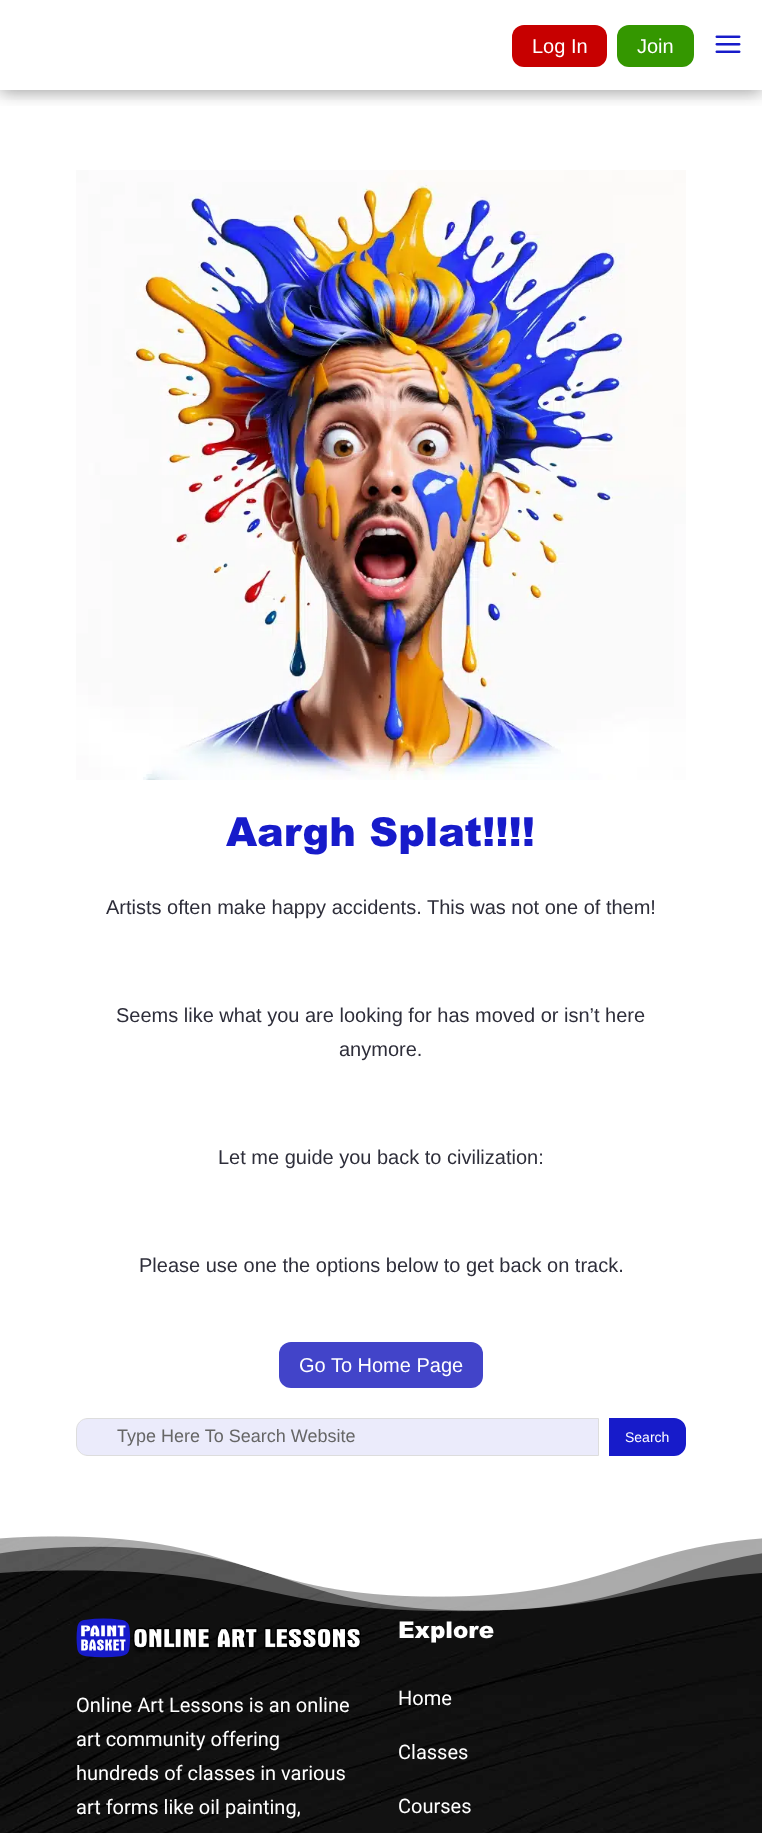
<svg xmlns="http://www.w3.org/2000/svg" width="762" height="1833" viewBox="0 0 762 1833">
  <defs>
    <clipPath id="clip1"><rect x="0" y="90" width="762" height="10"/></clipPath>
    <filter id="blur1" x="-50%" y="-200%" width="200%" height="500%"><feGaussianBlur stdDeviation="9"/></filter>
    <clipPath id="clip2"><rect x="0" y="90" width="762" height="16"/></clipPath>
  </defs>
  <rect width="100%" height="100%" fill="#ffffff"/>
  <g clip-path="url(#clip1)">
    <rect x="0" y="2" width="762" height="90" fill="#000000" fill-opacity="0.1" filter="url(#blur1)"/>
  </g>
  <g clip-path="url(#clip2)">
    <rect x="0" y="2" width="762" height="90" fill="#000000" fill-opacity="0.3" filter="url(#blur1)"/>
  </g>
  <rect x="512" y="25" width="95" height="42" rx="12" fill="#c70000"/>
  <text x="532" y="53" font-family="Liberation Sans" font-size="20" fill="#ffffff">Log In</text>
  <rect x="617" y="25" width="77" height="42" rx="12" fill="#349700"/>
  <text x="637" y="53" font-family="Liberation Sans" font-size="20" fill="#ffffff">Join</text>
  <image x="715" y="35" width="26" height="18" href="img1.png"/>
  <image x="76" y="170" width="610" height="610" href="img2.png"/>
  <text x="226" y="846" font-family="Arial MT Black" font-size="40" font-weight="900" fill="#171bca">Aargh Splat!!!!</text>
  <text x="106" y="914" font-family="Liberation Sans" font-size="20" fill="#2e2e3a">Artists often make happy accidents. This was not one of them!</text>
  <text x="116" y="1022" font-family="Liberation Sans" font-size="20" fill="#2e2e3a">Seems like what you are looking for has moved or isn’t here</text>
  <text x="339" y="1056" font-family="Liberation Sans" font-size="20" fill="#2e2e3a">anymore.</text>
  <text x="218" y="1164" font-family="Liberation Sans" font-size="20" fill="#2e2e3a">Let me guide you back to civilization:</text>
  <text x="139" y="1272" font-family="Liberation Sans" font-size="20" fill="#2e2e3a">Please use one the options below to get back on track.</text>
  <rect x="279" y="1342" width="204" height="46" rx="12" fill="#4244c9"/>
  <text x="299" y="1372" font-family="Liberation Sans" font-size="20" fill="#ffffff">Go To Home Page</text>
  <path d="M88 1418.5H598.5V1455.5H88C81.5 1455.5 76.5 1450.5 76.5 1444V1430C76.5 1423.5 81.5 1418.5 88 1418.5Z" fill="#ebebfb" stroke="#dddddd"/>
  <text x="117" y="1442" font-family="Liberation Sans" font-size="18" fill="#666666">Type Here To Search Website</text>
  <path d="M610 1419H674C680 1419 685 1424 685 1430V1444C685 1450 680 1455 674 1455H610Z" fill="#171bca" stroke="#171bca" stroke-width="2"/>
  <text x="625" y="1442" font-family="Liberation Sans" font-size="14" fill="#ffffff">Search</text>
  <image x="0" y="1536" width="762" height="297" href="img3.png"/>
  <image x="0" y="1536" width="762" height="76" href="img4.png"/>
  <image x="76" y="1618" width="285" height="40" href="img5.png"/>
  <text x="76" y="1712" font-family="Roboto" font-size="20" fill="#ffffff">Online Art Lessons is an online</text>
  <text x="76" y="1746" font-family="Roboto" font-size="20" fill="#ffffff">art community offering</text>
  <text x="76" y="1780" font-family="Roboto" font-size="20" fill="#ffffff">hundreds of classes in various</text>
  <text x="76" y="1814" font-family="Roboto" font-size="20" fill="#ffffff">art forms like oil painting,</text>
  <text x="398" y="1638" font-family="Arial MT Black" font-size="23" font-weight="900" fill="#ffffff">Explore</text>
  <text x="398" y="1705" font-family="Roboto" font-size="20" fill="#ffffff">Home</text>
  <text x="398" y="1759" font-family="Roboto" font-size="20" fill="#ffffff">Classes</text>
  <text x="398" y="1813" font-family="Roboto" font-size="20" fill="#ffffff">Courses</text>
</svg>
